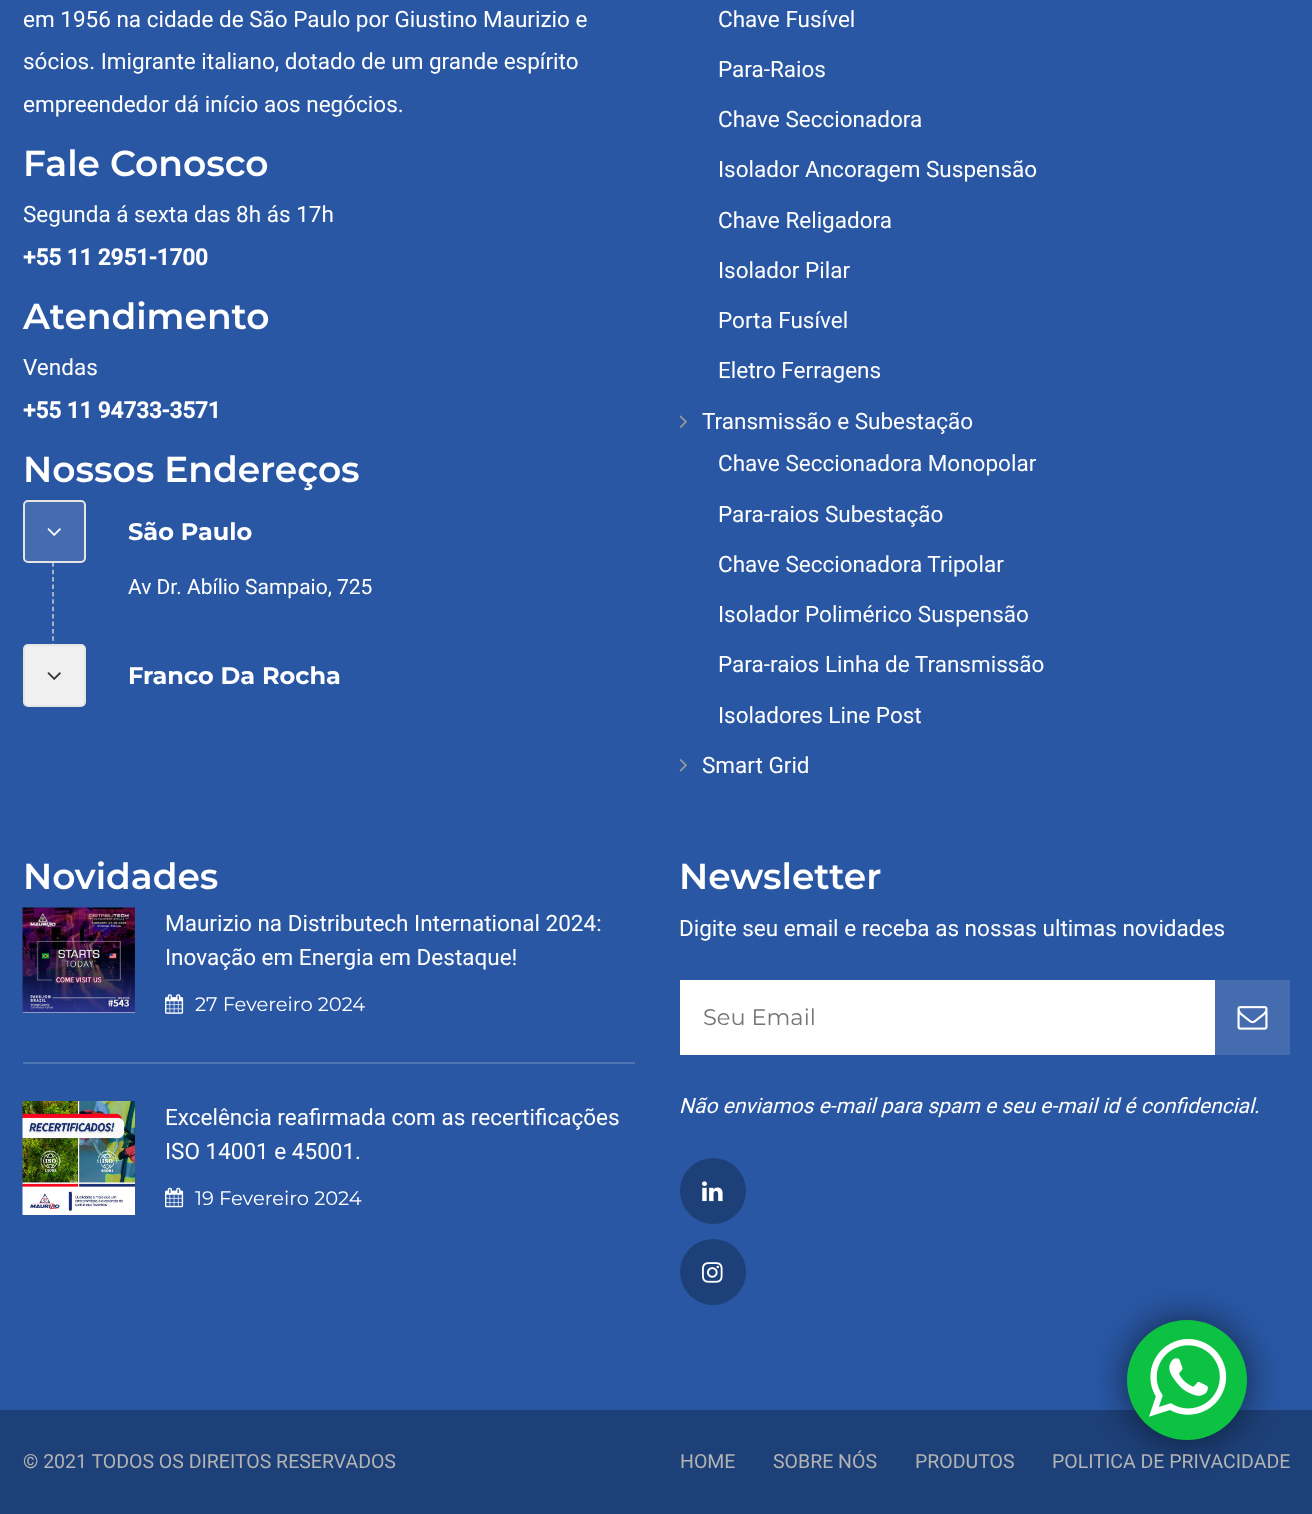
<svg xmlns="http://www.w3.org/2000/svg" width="1312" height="1514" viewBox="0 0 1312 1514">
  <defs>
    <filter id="blur1" x="-50%" y="-200%" width="200%" height="500%"><feGaussianBlur stdDeviation="19"/></filter>
  </defs>
  <rect width="100%" height="100%" fill="#2957a4"/>
  <text x="23" y="27" font-family="Roboto" font-size="22.5" fill="#ffffff">em 1956 na cidade de São Paulo por Giustino Maurizio e</text>
  <text x="23" y="69" font-family="Roboto" font-size="22.5" fill="#ffffff">sócios. Imigrante italiano, dotado de um grande espírito</text>
  <text x="23" y="112" font-family="Roboto" font-size="22.5" fill="#ffffff">empreendedor dá início aos negócios.</text>
  <text x="23" y="176" font-family="Montserrat" font-size="36" font-weight="600" fill="#ffffff">Fale Conosco</text>
  <text x="23" y="222" font-family="Roboto" font-size="22.5" fill="#ffffff">Segunda á sexta das 8h ás 17h</text>
  <text x="23" y="265" font-family="Roboto" font-size="22.5" font-weight="bold" fill="#ffffff">+55 11 2951-1700</text>
  <text x="23" y="329" font-family="Montserrat" font-size="36" font-weight="600" fill="#ffffff">Atendimento</text>
  <text x="23" y="375" font-family="Roboto" font-size="22.5" fill="#ffffff">Vendas</text>
  <text x="23" y="418" font-family="Roboto" font-size="22.5" font-weight="bold" fill="#ffffff">+55 11 94733-3571</text>
  <text x="23" y="482" font-family="Montserrat" font-size="36" font-weight="600" fill="#ffffff">Nossos Endereços</text>
  <path d="M53 547.5V655.5" fill="none" stroke="#d0d0d0" stroke-width="1.5" stroke-dasharray="4.5 2.9"/>
  <rect x="24" y="501" width="61" height="61" rx="4" fill="#446cae" stroke="#e5e5e5" stroke-width="2"/>
  <image x="47" y="528" width="14" height="8" href="img1.png"/>
  <text x="128" y="540" font-family="Montserrat" font-size="24" font-weight="bold" fill="#ffffff">São Paulo</text>
  <text x="128" y="594" font-family="Roboto" font-size="21" fill="#ffffff">Av Dr. Abílio Sampaio, 725</text>
  <rect x="24" y="645" width="61" height="61" rx="4" fill="#f0f0f0" stroke="#e5e5e5" stroke-width="2"/>
  <image x="47" y="672" width="14" height="8" href="img2.png"/>
  <text x="128" y="684" font-family="Montserrat" font-size="24" font-weight="bold" fill="#ffffff">Franco Da Rocha</text>
  <text x="718" y="27" font-family="Roboto" font-size="22.5" fill="#ffffff">Chave Fusível</text>
  <text x="718" y="77" font-family="Roboto" font-size="22.5" fill="#ffffff">Para-Raios</text>
  <text x="718" y="127" font-family="Roboto" font-size="22.5" fill="#ffffff">Chave Seccionadora</text>
  <text x="718" y="177" font-family="Roboto" font-size="22.5" fill="#ffffff">Isolador Ancoragem Suspensão</text>
  <text x="718" y="228" font-family="Roboto" font-size="22.5" fill="#ffffff">Chave Religadora</text>
  <text x="718" y="278" font-family="Roboto" font-size="22.5" fill="#ffffff">Isolador Pilar</text>
  <text x="718" y="328" font-family="Roboto" font-size="22.5" fill="#ffffff">Porta Fusível</text>
  <text x="718" y="378" font-family="Roboto" font-size="22.5" fill="#ffffff">Eletro Ferragens</text>
  <image x="679" y="415" width="8" height="13" href="img3.png"/>
  <text x="702" y="429" font-family="Roboto" font-size="22.5" fill="#ffffff">Transmissão e Subestação</text>
  <text x="718" y="471" font-family="Roboto" font-size="22.5" fill="#ffffff">Chave Seccionadora Monopolar</text>
  <text x="718" y="522" font-family="Roboto" font-size="22.5" fill="#ffffff">Para-raios Subestação</text>
  <text x="718" y="572" font-family="Roboto" font-size="22.5" fill="#ffffff">Chave Seccionadora Tripolar</text>
  <text x="718" y="622" font-family="Roboto" font-size="22.5" fill="#ffffff">Isolador Polimérico Suspensão</text>
  <text x="718" y="672" font-family="Roboto" font-size="22.5" fill="#ffffff">Para-raios Linha de Transmissão</text>
  <text x="718" y="723" font-family="Roboto" font-size="22.5" fill="#ffffff">Isoladores Line Post</text>
  <image x="679" y="759" width="8" height="13" href="img4.png"/>
  <text x="702" y="773" font-family="Roboto" font-size="22.5" fill="#ffffff">Smart Grid</text>
  <text x="23" y="889" font-family="Montserrat" font-size="36" font-weight="600" fill="#ffffff">Novidades</text>
  <rect x="23" y="1062" width="612" height="2" fill="#4d74b3"/>
  <rect x="23" y="1012" width="112" height="1" fill="#ffffff"/>
  <image x="22" y="907" width="113" height="106" href="img5.png"/>
  <text x="165" y="931" font-family="Roboto" font-size="22.5" fill="#ffffff">Maurizio na Distributech International 2024:</text>
  <text x="165" y="965" font-family="Roboto" font-size="22.5" fill="#ffffff">Inovação em Energia em Destaque!</text>
  <image x="165" y="994" width="19" height="20" href="img6.png"/>
  <text x="195" y="1011" font-family="Montserrat" font-size="19.5" fill="#ffffff">27 Fevereiro 2024</text>
  <image x="22" y="1101" width="113" height="114" href="img7.png"/>
  <text x="165" y="1125" font-family="Roboto" font-size="22.5" fill="#ffffff">Excelência reafirmada com as recertificações</text>
  <text x="165" y="1159" font-family="Roboto" font-size="22.5" fill="#ffffff">ISO 14001 e 45001.</text>
  <image x="165" y="1187" width="19" height="21" href="img8.png"/>
  <text x="195" y="1205" font-family="Montserrat" font-size="19.5" fill="#ffffff">19 Fevereiro 2024</text>
  <text x="679" y="889" font-family="Montserrat" font-size="36" font-weight="600" fill="#ffffff">Newsletter</text>
  <text x="679" y="936" font-family="Roboto" font-size="22.5" fill="#ffffff">Digite seu email e receba as nossas ultimas novidades</text>
  <rect x="680" y="980" width="535" height="75" fill="#ffffff"/>
  <text x="703" y="1025" font-family="Montserrat" font-size="22.5" fill="#757575">Seu Email</text>
  <rect x="1215" y="980" width="75" height="75" fill="#446cae"/>
  <image x="1237" y="1006" width="31" height="24" href="img9.png"/>
  <text x="679" y="1113" font-family="Roboto" font-size="21" font-style="italic" fill="#ffffff">Não enviamos e-mail para spam e seu e-mail id é confidencial.</text>
  <circle cx="713" cy="1191" r="33" fill="#1d4078"/>
  <image x="702" y="1181" width="21" height="21" href="img10.png"/>
  <circle cx="713" cy="1272" r="33" fill="#1d4078"/>
  <image x="702" y="1262" width="21" height="21" href="img11.png"/>
  <rect x="0" y="1410" width="1312" height="104" fill="#1d4078"/>
  <rect x="1127" y="1320" width="120" height="120" rx="60" fill="#000000" fill-opacity="0.59" filter="url(#blur1)"/>
  <circle cx="1187" cy="1380" r="60" fill="#0dc143"/>
  <image x="1149" y="1339" width="78" height="78" href="img12.png"/>
  <text x="23" y="1468" font-family="Roboto" font-size="19.5" fill="#b3b3b3">© 2021 TODOS OS DIREITOS RESERVADOS</text>
  <text x="680" y="1468" font-family="Roboto" font-size="19.5" fill="#b3b3b3">HOME</text>
  <text x="773" y="1468" font-family="Roboto" font-size="19.5" fill="#b3b3b3">SOBRE NÓS</text>
  <text x="915" y="1468" font-family="Roboto" font-size="19.5" fill="#b3b3b3">PRODUTOS</text>
  <text x="1052" y="1468" font-family="Roboto" font-size="19.5" fill="#b3b3b3">POLITICA DE PRIVACIDADE</text>
</svg>
